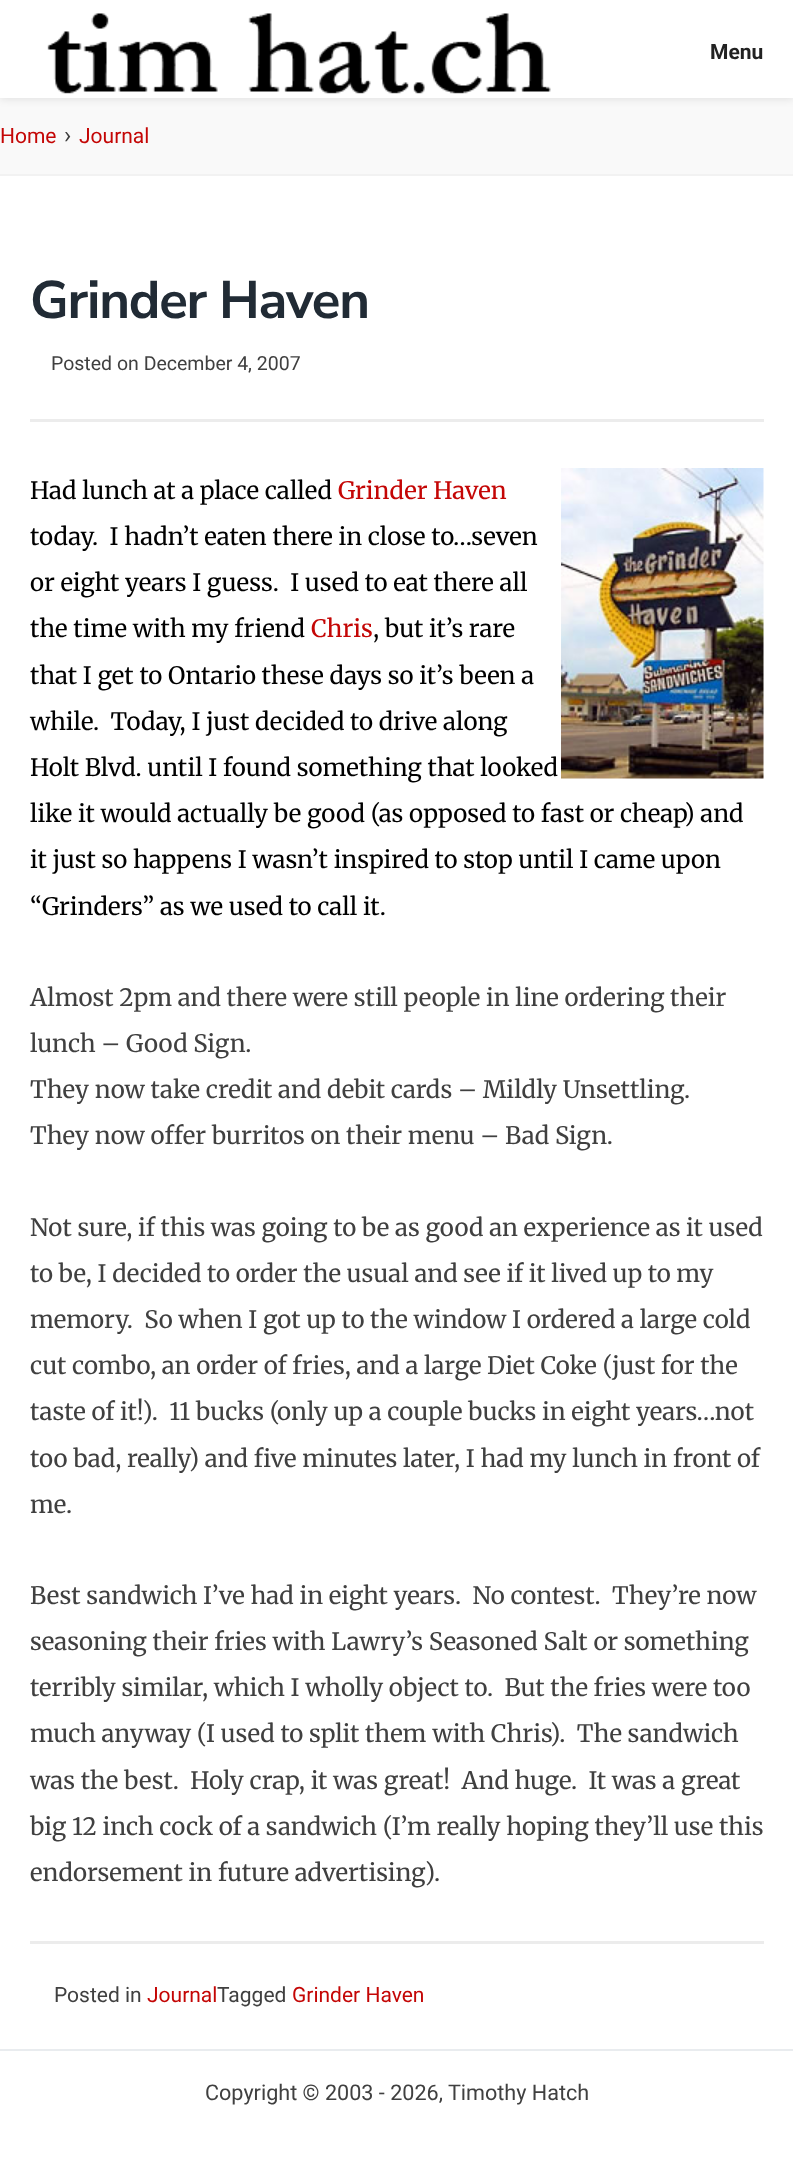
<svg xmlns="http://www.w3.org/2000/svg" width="793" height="2167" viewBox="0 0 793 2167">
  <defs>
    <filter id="blur1" x="-50%" y="-200%" width="200%" height="500%"><feGaussianBlur stdDeviation="4"/></filter>
  </defs>
  <rect width="100%" height="100%" fill="#ffffff"/>
  <rect x="0" y="98" width="793" height="76" fill="#f9f9f9"/>
  <rect x="0" y="2" width="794" height="97" fill="#000000" fill-opacity="0.1" filter="url(#blur1)"/>
  <rect x="0" y="0" width="793" height="98" fill="#ffffff"/>
  <image x="47" y="13" width="504" height="81" href="img1.png"/>
  <text x="710" y="59" font-family="Roboto" font-size="21" font-weight="bold" fill="#222222">Menu</text>
  <rect x="0" y="174" width="793" height="2" fill="#f2f2f2"/>
  <text x="0" y="143" font-family="Roboto" font-size="21" fill="#c40605">Home</text>
  <text x="64" y="143" font-family="Roboto" font-size="24" fill="#404040">›</text>
  <text x="79" y="143" font-family="Roboto" font-size="21" fill="#c40605">Journal</text>
  <rect x="30" y="419" width="734" height="3" fill="#ececec"/>
  <text x="30" y="318" font-family="Nunito Sans" font-size="52.75" font-weight="200" letter-spacing="-1.25" fill="#212b35">Grinder Haven</text>
  <text x="51" y="370" font-family="Roboto" font-size="19.5" fill="#404040">Posted on December 4, 2007</text>
  <text x="30" y="499" font-family="Merriweather" font-size="24" font-weight="300" fill="#000000">Had lunch at a place called</text>
  <text x="338" y="499" font-family="Merriweather" font-size="24" font-weight="300" fill="#c40605">Grinder Haven</text>
  <image x="561" y="468" width="203" height="311" href="img2.png"/>
  <text x="30" y="545" font-family="Merriweather" font-size="24" font-weight="300" fill="#000000" xml:space="preserve">today.  I hadn’t eaten there in close to…seven</text>
  <text x="30" y="591" font-family="Merriweather" font-size="24" font-weight="300" fill="#000000" xml:space="preserve">or eight years I guess.  I used to eat there all</text>
  <text x="30" y="637" font-family="Merriweather" font-size="24" font-weight="300" fill="#000000">the time with my friend</text>
  <text x="311" y="637" font-family="Merriweather" font-size="24" font-weight="300" fill="#c40605">Chris</text>
  <text x="373" y="637" font-family="Merriweather" font-size="24" font-weight="300" fill="#000000">, but it’s rare</text>
  <text x="30" y="684" font-family="Merriweather" font-size="24" font-weight="300" fill="#000000">that I get to Ontario these days so it’s been a</text>
  <text x="30" y="730" font-family="Merriweather" font-size="24" font-weight="300" fill="#000000" xml:space="preserve">while.  Today, I just decided to drive along</text>
  <text x="30" y="776" font-family="Merriweather" font-size="24" font-weight="300" fill="#000000">Holt Blvd. until I found something that looked</text>
  <text x="30" y="822" font-family="Merriweather" font-size="24" font-weight="300" fill="#000000">like it would actually be good (as opposed to fast or cheap) and</text>
  <text x="30" y="868" font-family="Merriweather" font-size="24" font-weight="300" fill="#000000">it just so happens I wasn’t inspired to stop until I came upon</text>
  <text x="30" y="915" font-family="Merriweather" font-size="24" font-weight="300" fill="#000000">“Grinders” as we used to call it.</text>
  <text x="30" y="1006" font-family="Merriweather" font-size="24" font-weight="300" fill="#404040">Almost 2pm and there were still people in line ordering their</text>
  <text x="30" y="1052" font-family="Merriweather" font-size="24" font-weight="300" fill="#404040">lunch – Good Sign.</text>
  <text x="30" y="1098" font-family="Merriweather" font-size="24" font-weight="300" fill="#404040">They now take credit and debit cards – Mildly Unsettling.</text>
  <text x="30" y="1144" font-family="Merriweather" font-size="24" font-weight="300" fill="#404040">They now offer burritos on their menu – Bad Sign.</text>
  <text x="30" y="1236" font-family="Merriweather" font-size="24" font-weight="300" fill="#404040">Not sure, if this was going to be as good an experience as it used</text>
  <text x="30" y="1282" font-family="Merriweather" font-size="24" font-weight="300" fill="#404040">to be, I decided to order the usual and see if it lived up to my</text>
  <text x="30" y="1328" font-family="Merriweather" font-size="24" font-weight="300" fill="#404040" xml:space="preserve">memory.  So when I got up to the window I ordered a large cold</text>
  <text x="30" y="1374" font-family="Merriweather" font-size="24" font-weight="300" fill="#404040">cut combo, an order of fries, and a large Diet Coke (just for the</text>
  <text x="30" y="1420" font-family="Merriweather" font-size="24" font-weight="300" fill="#404040" xml:space="preserve">taste of it!).  11 bucks (only up a couple bucks in eight years…not</text>
  <text x="30" y="1467" font-family="Merriweather" font-size="24" font-weight="300" fill="#404040">too bad, really) and five minutes later, I had my lunch in front of</text>
  <text x="30" y="1513" font-family="Merriweather" font-size="24" font-weight="300" fill="#404040">me.</text>
  <text x="30" y="1604" font-family="Merriweather" font-size="24" font-weight="300" fill="#404040" xml:space="preserve">Best sandwich I’ve had in eight years.  No contest.  They’re now</text>
  <text x="30" y="1650" font-family="Merriweather" font-size="24" font-weight="300" fill="#404040">seasoning their fries with Lawry’s Seasoned Salt or something</text>
  <text x="30" y="1696" font-family="Merriweather" font-size="24" font-weight="300" fill="#404040" xml:space="preserve">terribly similar, which I wholly object to.  But the fries were too</text>
  <text x="30" y="1742" font-family="Merriweather" font-size="24" font-weight="300" fill="#404040" xml:space="preserve">much anyway (I used to split them with Chris).  The sandwich</text>
  <text x="30" y="1789" font-family="Merriweather" font-size="24" font-weight="300" fill="#404040" xml:space="preserve">was the best.  Holy crap, it was great!  And huge.  It was a great</text>
  <text x="30" y="1835" font-family="Merriweather" font-size="24" font-weight="300" fill="#404040">big 12 inch cock of a sandwich (I’m really hoping they’ll use this</text>
  <text x="30" y="1881" font-family="Merriweather" font-size="24" font-weight="300" fill="#404040">endorsement in future advertising).</text>
  <rect x="30" y="1941" width="734" height="3" fill="#ececec"/>
  <text x="54" y="2002" font-family="Roboto" font-size="21" fill="#404040">Posted in</text>
  <text x="147" y="2002" font-family="Roboto" font-size="21" fill="#c40605">Journal</text>
  <text x="217" y="2002" font-family="Roboto" font-size="21" fill="#404040">Tagged</text>
  <text x="292" y="2002" font-family="Roboto" font-size="21" fill="#c40605">Grinder Haven</text>
  <rect x="0" y="2049" width="793" height="2" fill="#e9ecef"/>
  <text x="205" y="2100" font-family="Roboto" font-size="21.6" fill="#404040">Copyright © 2003 - 2026, Timothy Hatch</text>
</svg>
